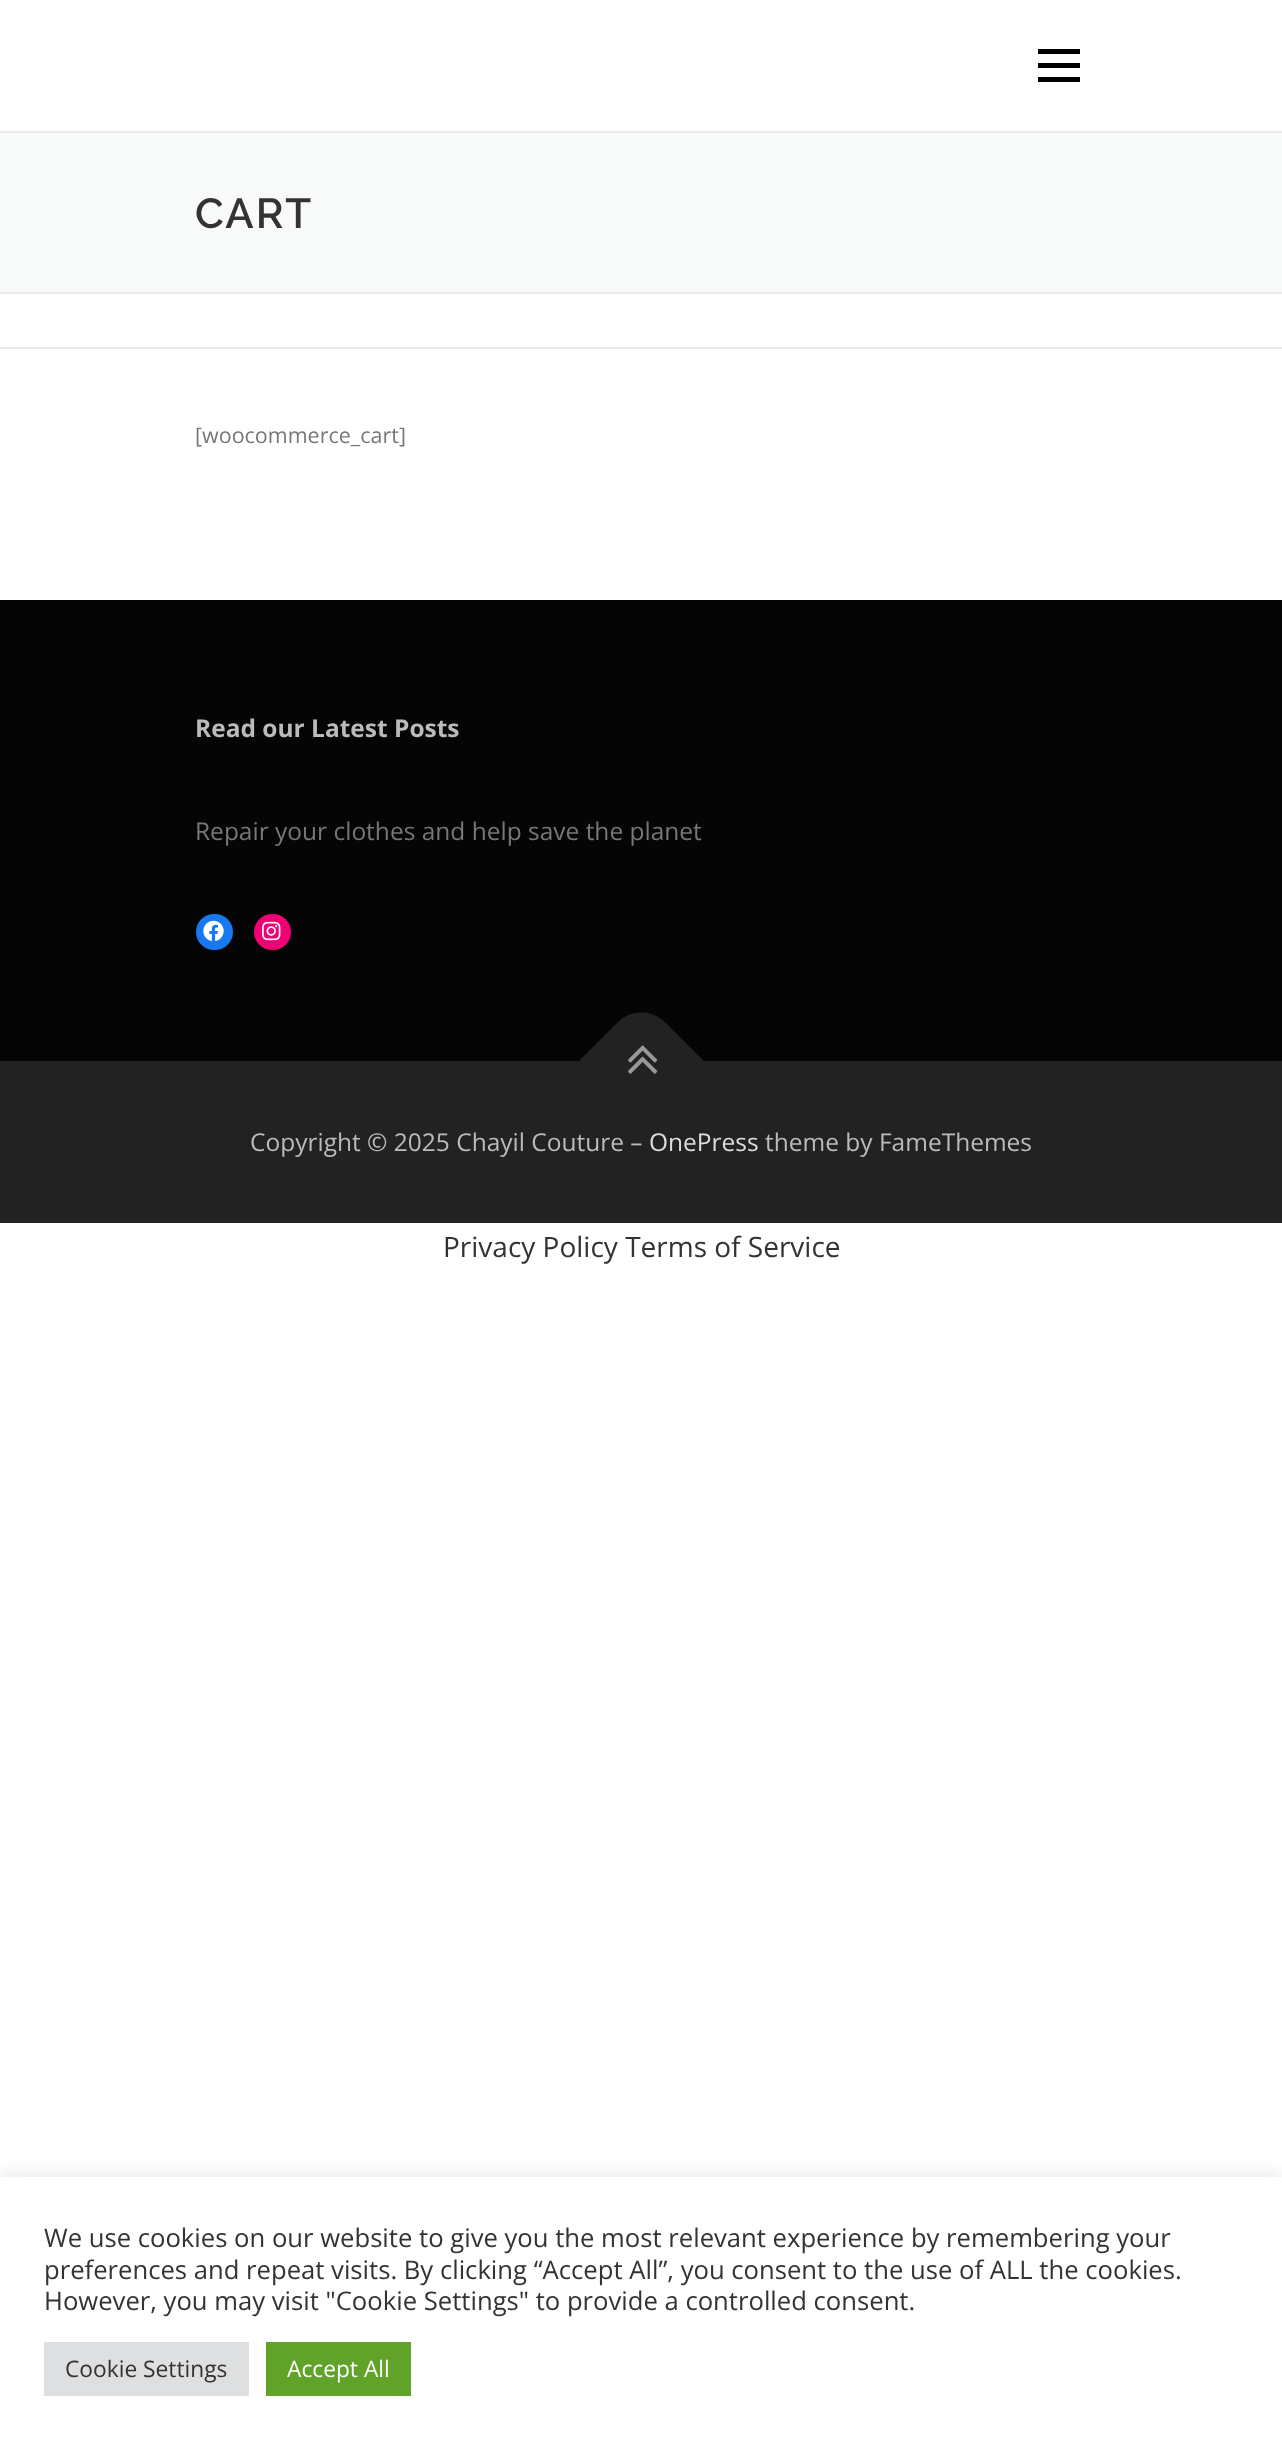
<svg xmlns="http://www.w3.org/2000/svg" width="1282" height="2447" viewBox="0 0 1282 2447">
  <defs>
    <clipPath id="clip1"><rect x="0" y="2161" width="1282" height="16"/></clipPath>
    <filter id="blur1" x="-50%" y="-200%" width="200%" height="500%"><feGaussianBlur stdDeviation="9"/></filter>
  </defs>
  <rect width="100%" height="100%" fill="#ffffff"/>
  <rect x="1038" y="63" width="42" height="5" fill="#000000"/>
  <rect x="1038" y="49" width="42" height="5" fill="#000000"/>
  <rect x="1038" y="77" width="42" height="5" fill="#000000"/>
  <rect x="0" y="133" width="1282" height="159" fill="#f8f9f9"/>
  <rect x="0" y="131" width="1282" height="2" fill="#e9e9e9"/>
  <rect x="0" y="292" width="1282" height="2" fill="#e9e9e9"/>
  <text x="195" y="228" font-family="Raleway" font-size="42" font-weight="600" letter-spacing="2" fill="#333333">CART</text>
  <rect x="0" y="347" width="1282" height="2" fill="#e9e9e9"/>
  <text x="195" y="443" font-family="Open Sans" font-size="21.5" fill="#777777">[woocommerce_cart]</text>
  <rect x="0" y="600" width="1282" height="461" fill="#050505"/>
  <text x="195" y="737" font-family="Open Sans" font-size="24.5" font-weight="bold" fill="#bbbbbb">Read our Latest Posts</text>
  <text x="195" y="840" font-family="Open Sans" font-size="24.5" fill="#777777">Repair your clothes and help save the planet</text>
  <rect x="196" y="914" width="37" height="36" rx="18" fill="#1778f2"/>
  <image x="203" y="920" width="21" height="21" href="img1.png"/>
  <rect x="254" y="914" width="37" height="36" rx="18" fill="#f00075"/>
  <image x="262" y="921" width="19" height="20" href="img2.png"/>
  <rect x="0" y="1061" width="1282" height="162" fill="#222222"/>
  <path d="M580 1060L617 1023C630 1009 652 1009 666 1023L703 1060L641 1122Z" fill="#222222"/>
  <image x="628" y="1045" width="30" height="29" href="img3.png"/>
  <text x="250" y="1151" font-family="Open Sans" font-size="24.5" fill="#bbbbbb">Copyright © 2025 Chayil Couture –</text>
  <text x="649" y="1151" font-family="Open Sans" font-size="24.5" fill="#dddddd">OnePress</text>
  <text x="765" y="1151" font-family="Open Sans" font-size="24.5" fill="#bbbbbb">theme by FameThemes</text>
  <text x="443" y="1257" font-family="Open Sans" font-size="28" fill="#333333">Privacy Policy Terms of Service</text>
  <g clip-path="url(#clip1)">
    <rect x="0" y="2175" width="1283" height="272" fill="#acabab" fill-opacity="0.3" filter="url(#blur1)"/>
  </g>
  <text x="44" y="2247" font-family="Open Sans" font-size="25.65" fill="#333333">We use cookies on our website to give you the most relevant experience by remembering your</text>
  <text x="44" y="2279" font-family="Open Sans" font-size="25.65" fill="#333333">preferences and repeat visits. By clicking “Accept All”, you consent to the use of ALL the cookies.</text>
  <text x="44" y="2310" font-family="Open Sans" font-size="25.65" fill="#333333">However, you may visit "Cookie Settings" to provide a controlled consent.</text>
  <rect x="44" y="2342" width="205" height="54" fill="#dedfe0"/>
  <text x="65" y="2377" font-family="Open Sans" font-size="22.75" fill="#333333">Cookie Settings</text>
  <rect x="266" y="2342" width="145" height="54" fill="#61a229"/>
  <text x="287" y="2377" font-family="Open Sans" font-size="22.75" fill="#ffffff">Accept All</text>
</svg>
